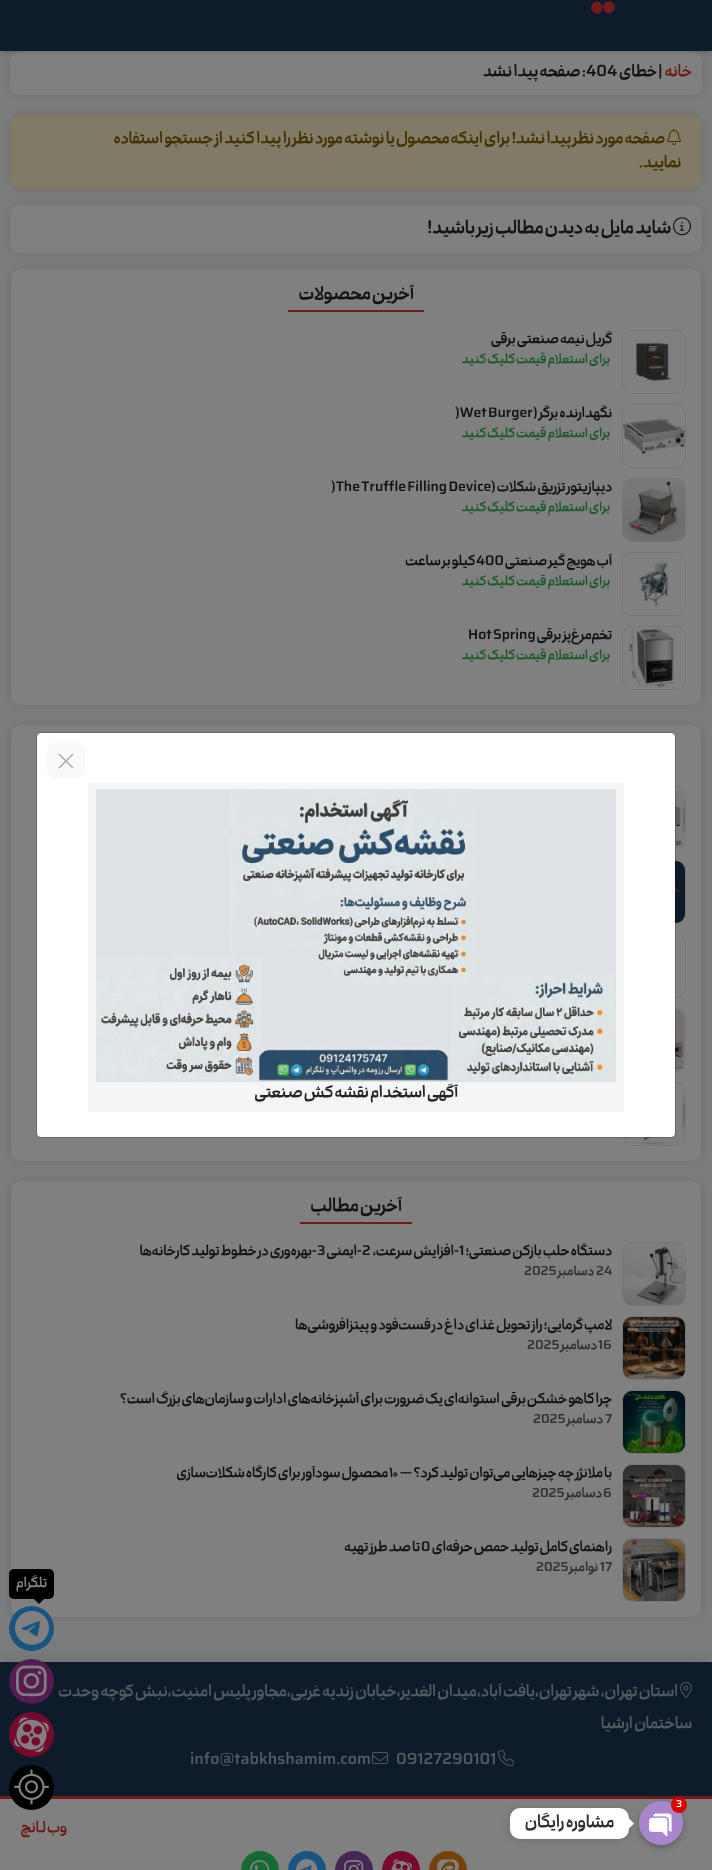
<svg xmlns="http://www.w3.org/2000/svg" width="712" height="1870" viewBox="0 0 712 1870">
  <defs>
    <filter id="blur1" x="-50%" y="-200%" width="200%" height="500%"><feGaussianBlur stdDeviation="5"/></filter>
    <filter id="blur2" x="-50%" y="-200%" width="200%" height="500%"><feGaussianBlur stdDeviation="2"/></filter>
    <filter id="blur3" x="-50%" y="-200%" width="200%" height="500%"><feGaussianBlur stdDeviation="10"/></filter>
    <filter id="blur4" x="-50%" y="-200%" width="200%" height="500%"><feGaussianBlur stdDeviation="4"/></filter>
    <filter id="blur5" x="-50%" y="-200%" width="200%" height="500%"><feGaussianBlur stdDeviation="3"/></filter>
  </defs>
  <rect width="100%" height="100%" fill="#7a7b7d"/>
  <rect x="10" y="51" width="692" height="44" rx="10" fill="#000000" fill-opacity="0.1" filter="url(#blur1)"/>
  <rect x="10" y="51" width="692" height="44" rx="10" fill="#808080"/>
  <rect x="0" y="-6" width="712" height="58" fill="#000000" fill-opacity="0.19" filter="url(#blur2)"/>
  <rect x="0" y="0" width="712" height="51" fill="#0e1b2a"/>
  <image x="590" y="0" width="25" height="15" href="img1.png"/>
  <text x="692" y="76" font-family="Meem" font-size="16" font-weight="600" direction="rtl" fill="#6f1a1a">خانه</text>
  <text x="658" y="76" font-family="Meem" font-size="16" font-weight="600" fill="#111315">|</text>
  <text x="657" y="76" font-family="Meem" font-size="16" font-weight="600" direction="rtl" fill="#111315">خطای</text>
  <text x="586" y="76" font-family="Meem" font-size="16" font-weight="600" fill="#111315">404</text>
  <text x="586" y="76" font-family="Meem" font-size="16" font-weight="600" direction="rtl" fill="#111315">: صفحه پیدا نشد</text>
  <rect x="10" y="115" width="692" height="74" rx="10" fill="#000000" fill-opacity="0.1" filter="url(#blur1)"/>
  <rect x="10.5" y="115.5" width="691" height="73" rx="9.5" fill="#807a67" stroke="#80775d"/>
  <image x="667" y="129" width="14" height="16" href="img2.png"/>
  <text x="665" y="143" font-family="Meem" font-size="16" font-weight="600" direction="rtl" fill="#433202">صفحه مورد نظر پیدا نشد! برای اینکه محصول یا نوشته مورد نظر را پیدا کنید از جستجو استفاده</text>
  <text x="681" y="167" font-family="Meem" font-size="16" font-weight="600" direction="rtl" fill="#433202">نمایید.</text>
  <rect x="10" y="205" width="692" height="48" rx="10" fill="#000000" fill-opacity="0.1" filter="url(#blur1)"/>
  <rect x="10.5" y="205.5" width="691" height="47" rx="9.5" fill="#808080" stroke="#808080"/>
  <image x="673" y="217" width="18" height="19" href="img3.png"/>
  <text x="671" y="233" font-family="Meem" font-size="18" font-weight="600" direction="rtl" fill="#111315">شاید مایل به دیدن مطالب زیر باشید!</text>
  <rect x="11" y="269" width="690" height="436" rx="10" fill="#000000" fill-opacity="0.1" filter="url(#blur1)"/>
  <rect x="11" y="269" width="690" height="436" rx="10" fill="#808080"/>
  <rect x="288" y="310" width="136" height="2" fill="#6f1a1a"/>
  <text x="414" y="299" font-family="Meem" font-size="18" font-weight="600" direction="rtl" fill="#111315">آخرین محصولات</text>
  <rect x="622.5" y="330.5" width="63" height="63" rx="9.5" fill="none" stroke="#757678"/>
  <image x="623" y="337" width="62" height="45" href="img4.png"/>
  <text x="612" y="343" font-family="Meem" font-size="14" font-weight="600" direction="rtl" fill="#111315">گریل نیمه صنعتی برقی</text>
  <text x="610" y="363" font-family="Meem" font-size="13" font-weight="600" direction="rtl" fill="#1d592b">برای استعلام قیمت کلیک کنید</text>
  <rect x="622.5" y="404.5" width="63" height="63" rx="9.5" fill="none" stroke="#757678"/>
  <image x="623" y="411" width="62" height="56" href="img5.png"/>
  <text x="612" y="417" font-family="Meem" font-size="14" font-weight="600" direction="rtl" fill="#111315">نگهدارنده برگر (</text>
  <text x="455" y="417" font-family="Meem" font-size="14" font-weight="600" fill="#111315">)Wet Burger</text>
  <text x="610" y="437" font-family="Meem" font-size="13" font-weight="600" direction="rtl" fill="#1d592b">برای استعلام قیمت کلیک کنید</text>
  <rect x="622.5" y="478.5" width="63" height="63" rx="9.5" fill="none" stroke="#757678"/>
  <image x="623" y="479" width="62" height="62" href="img6.png"/>
  <text x="612" y="491" font-family="Meem" font-size="14" font-weight="600" direction="rtl" fill="#111315">دیپازیتور تزریق شکلات (</text>
  <text x="331" y="491" font-family="Meem" font-size="14" font-weight="600" fill="#111315">)The Truffle Filling Device</text>
  <text x="610" y="511" font-family="Meem" font-size="13" font-weight="600" direction="rtl" fill="#1d592b">برای استعلام قیمت کلیک کنید</text>
  <rect x="622.5" y="552.5" width="63" height="63" rx="9.5" fill="none" stroke="#757678"/>
  <image x="623" y="559" width="62" height="56" href="img7.png"/>
  <text x="612" y="565" font-family="Meem" font-size="14" font-weight="600" direction="rtl" fill="#111315">آب هویج گیر صنعتی</text>
  <text x="476" y="565" font-family="Meem" font-size="14" font-weight="600" fill="#111315">400</text>
  <text x="475" y="565" font-family="Meem" font-size="14" font-weight="600" direction="rtl" fill="#111315">کیلو بر ساعت</text>
  <text x="610" y="585" font-family="Meem" font-size="13" font-weight="600" direction="rtl" fill="#1d592b">برای استعلام قیمت کلیک کنید</text>
  <rect x="622.5" y="626.5" width="63" height="63" rx="9.5" fill="none" stroke="#757678"/>
  <image x="623" y="628" width="62" height="61" href="img8.png"/>
  <text x="612" y="639" font-family="Meem" font-size="14" font-weight="600" direction="rtl" fill="#111315">تخم‌مرغ‌پز برقی</text>
  <text x="468" y="639" font-family="Meem" font-size="14" font-weight="600" fill="#111315">Hot Spring</text>
  <text x="610" y="659" font-family="Meem" font-size="13" font-weight="600" direction="rtl" fill="#1d592b">برای استعلام قیمت کلیک کنید</text>
  <rect x="11" y="725" width="690" height="436" rx="10" fill="#000000" fill-opacity="0.1" filter="url(#blur1)"/>
  <rect x="11" y="725" width="690" height="436" rx="10" fill="#808080"/>
  <rect x="622.5" y="786.5" width="63" height="63" rx="9.5" fill="none" stroke="#757678"/>
  <image x="675" y="788" width="10" height="61" href="img9.png"/>
  <rect x="622.5" y="860.5" width="63" height="63" rx="9.5" fill="none" stroke="#757678"/>
  <image x="675" y="861" width="10" height="62" href="img10.png"/>
  <rect x="622.5" y="934.5" width="63" height="63" rx="9.5" fill="none" stroke="#757678"/>
  <image x="675" y="935" width="10" height="62" href="img11.png"/>
  <rect x="622.5" y="1008.5" width="63" height="63" rx="9.5" fill="none" stroke="#757678"/>
  <image x="675" y="1009" width="10" height="62" href="img12.png"/>
  <rect x="622.5" y="1082.5" width="63" height="63" rx="9.5" fill="none" stroke="#757678"/>
  <image x="623" y="1084" width="62" height="61" href="img13.png"/>
  <rect x="11" y="1181" width="690" height="436" rx="10" fill="#000000" fill-opacity="0.1" filter="url(#blur1)"/>
  <rect x="11" y="1181" width="690" height="436" rx="10" fill="#808080"/>
  <rect x="300" y="1222" width="112" height="2" fill="#6f1a1a"/>
  <text x="402" y="1211" font-family="Meem" font-size="18" font-weight="600" direction="rtl" fill="#111315">آخرین مطالب</text>
  <rect x="622.5" y="1242.5" width="63" height="63" rx="9.5" fill="none" stroke="#757678"/>
  <image x="623" y="1243" width="62" height="62" href="img14.png"/>
  <text x="612" y="1255" font-family="Meem" font-size="14" font-weight="600" direction="rtl" fill="#111315">دستگاه حلب بازکن صنعتی؛</text>
  <text x="459" y="1255" font-family="Meem" font-size="14" font-weight="600" fill="#111315">1</text>
  <text x="459" y="1255" font-family="Meem" font-size="14" font-weight="600" direction="rtl" fill="#111315">-افزایش سرعت،</text>
  <text x="362" y="1255" font-family="Meem" font-size="14" font-weight="600" fill="#111315">2</text>
  <text x="362" y="1255" font-family="Meem" font-size="14" font-weight="600" direction="rtl" fill="#111315">-ایمنی</text>
  <text x="317" y="1255" font-family="Meem" font-size="14" font-weight="600" fill="#111315">3</text>
  <text x="317" y="1255" font-family="Meem" font-size="14" font-weight="600" direction="rtl" fill="#111315">-بهره‌وری در خطوط تولید کارخانه‌ها</text>
  <text x="596" y="1275" font-family="Meem" font-size="13" font-weight="600" fill="#313131">24</text>
  <text x="594" y="1275" font-family="Meem" font-size="13" font-weight="600" direction="rtl" fill="#313131">دسامبر</text>
  <text x="524" y="1275" font-family="Meem" font-size="13" font-weight="600" fill="#313131">2025</text>
  <rect x="622.5" y="1316.5" width="63" height="63" rx="9.5" fill="none" stroke="#757678"/>
  <image x="623" y="1317" width="62" height="62" href="img15.png"/>
  <text x="612" y="1329" font-family="Meem" font-size="14" font-weight="600" direction="rtl" fill="#111315">لامپ گرمایی؛ راز تحویل غذای داغ در فست‌فود و پیتزافروشی‌ها</text>
  <text x="598" y="1349" font-family="Meem" font-size="13" font-weight="600" fill="#313131">16</text>
  <text x="597" y="1349" font-family="Meem" font-size="13" font-weight="600" direction="rtl" fill="#313131">دسامبر</text>
  <text x="527" y="1349" font-family="Meem" font-size="13" font-weight="600" fill="#313131">2025</text>
  <rect x="622.5" y="1390.5" width="63" height="63" rx="9.5" fill="none" stroke="#757678"/>
  <image x="623" y="1391" width="62" height="62" href="img16.png"/>
  <text x="612" y="1403" font-family="Meem" font-size="14" font-weight="600" direction="rtl" fill="#111315">چرا کاهو خشکن برقی استوانه‌ای یک ضرورت برای آشپزخانه‌های ادارات و سازمان‌های بزرگ است؟</text>
  <text x="605" y="1423" font-family="Meem" font-size="13" font-weight="600" fill="#313131">7</text>
  <text x="603" y="1423" font-family="Meem" font-size="13" font-weight="600" direction="rtl" fill="#313131">دسامبر</text>
  <text x="533" y="1423" font-family="Meem" font-size="13" font-weight="600" fill="#313131">2025</text>
  <rect x="622.5" y="1464.5" width="63" height="63" rx="9.5" fill="none" stroke="#757678"/>
  <image x="623" y="1465" width="62" height="62" href="img17.png"/>
  <text x="612" y="1477" font-family="Meem" font-size="14" font-weight="600" direction="rtl" fill="#111315">با ملانژر چه چیزهایی می‌توان تولید کرد؟ —</text>
  <text x="389" y="1477" font-family="Meem" font-size="14" font-weight="600" fill="#111315">۱۰</text>
  <text x="388" y="1477" font-family="Meem" font-size="14" font-weight="600" direction="rtl" fill="#111315">محصول سودآور برای کارگاه شکلات‌سازی</text>
  <text x="603" y="1497" font-family="Meem" font-size="13" font-weight="600" fill="#313131">6</text>
  <text x="602" y="1497" font-family="Meem" font-size="13" font-weight="600" direction="rtl" fill="#313131">دسامبر</text>
  <text x="532" y="1497" font-family="Meem" font-size="13" font-weight="600" fill="#313131">2025</text>
  <rect x="622.5" y="1538.5" width="63" height="63" rx="9.5" fill="none" stroke="#757678"/>
  <image x="623" y="1539" width="62" height="62" href="img18.png"/>
  <text x="612" y="1551" font-family="Meem" font-size="14" font-weight="600" direction="rtl" fill="#111315">راهنمای کامل تولید حمص حرفه‌ای</text>
  <text x="421" y="1551" font-family="Meem" font-size="14" font-weight="600" fill="#111315">0</text>
  <text x="420" y="1551" font-family="Meem" font-size="14" font-weight="600" direction="rtl" fill="#111315">تا صد طرز تهیه</text>
  <text x="600" y="1571" font-family="Meem" font-size="13" font-weight="600" fill="#313131">17</text>
  <text x="598" y="1571" font-family="Meem" font-size="13" font-weight="600" direction="rtl" fill="#313131">نوامبر</text>
  <text x="536" y="1571" font-family="Meem" font-size="13" font-weight="600" fill="#313131">2025</text>
  <rect x="37" y="733" width="638" height="404" rx="4" fill="#ffffff"/>
  <rect x="36.5" y="732.5" width="639" height="405" rx="4.5" fill="none" stroke="#000000" stroke-opacity="0.2"/>
  <rect x="47" y="743" width="38" height="35" rx="7" fill="#f8f9fa"/>
  <image x="58" y="753" width="16" height="16" href="img19.png"/>
  <rect x="88" y="783" width="536" height="329" fill="#f5f5f5"/>
  <image x="96" y="789" width="520" height="293" href="img20.png"/>
  <text x="458" y="1097" font-family="Meem" font-size="16" font-weight="600" direction="rtl" fill="#212529">آگهی استخدام نقشه کش صنعتی</text>
  <rect x="9" y="1569" width="45" height="30" rx="5" fill="#000000"/>
  <text x="47" y="1587" font-family="Meem" font-size="14" font-weight="600" direction="rtl" fill="#808080">تلگرام</text>
  <path d="M33 1598H45L39 1604Z" fill="#000000"/>
  <rect x="6" y="1662" width="700" height="122" fill="#000000" fill-opacity="0.12" filter="url(#blur3)"/>
  <circle cx="31.5" cy="1628.5" r="22.5" fill="#195580"/>
  <image x="15" y="1610" width="34" height="35" href="img21.png"/>
  <rect x="0" y="1662" width="712" height="134" fill="#0e1b2a"/>
  <circle cx="31.5" cy="1681.5" r="22.5" fill="#561a54"/>
  <image x="16" y="1665" width="31" height="32" href="img22.png"/>
  <circle cx="31.5" cy="1734.5" r="22.5" fill="#760a2e"/>
  <image x="14" y="1717" width="35" height="35" href="img23.png"/>
  <rect x="0" y="1799" width="712" height="71" fill="#808080"/>
  <rect x="0" y="1796" width="712" height="3" fill="#6f1a1a"/>
  <circle cx="31.5" cy="1787.5" r="22.5" fill="#000000"/>
  <image x="14" y="1769" width="35" height="36" href="img24.png"/>
  <image x="680" y="1682" width="12" height="16" href="img25.png"/>
  <text x="678" y="1696" font-family="Meem" font-size="16" font-weight="600" direction="rtl" fill="#515960">استان تهران، شهر تهران،یافت آباد،میدان الغدیر،خیابان زندیه غربی،مجاور پلیس امنیت،نبش کوچه وحدت</text>
  <text x="692" y="1728" font-family="Meem" font-size="16" font-weight="600" direction="rtl" fill="#515960">ساختمان ارشیا</text>
  <image x="498" y="1750" width="16" height="16" href="img26.png"/>
  <text x="396" y="1764" font-family="Meem" font-size="16" font-weight="600" fill="#515960">09127290101</text>
  <image x="372" y="1752" width="16" height="12" href="img27.png"/>
  <text x="190" y="1764" font-family="Meem" font-size="16" font-weight="600" fill="#515960">info@tabkhshamim.com</text>
  <rect x="510" y="1809" width="119" height="31" rx="10" fill="#000000" fill-opacity="0.15" filter="url(#blur4)"/>
  <path d="M629 1828.5V1818.5L634 1823.5Z" fill="#ffffff"/>
  <rect x="639" y="1804" width="44" height="44" rx="22" fill="#000000" fill-opacity="0.25" filter="url(#blur5)"/>
  <image x="639" y="1801" width="44" height="44" href="img28.png"/>
  <circle cx="679" cy="1805" r="8" fill="#dd0000"/>
  <text x="676" y="1807" font-family="Meem" font-size="10" font-weight="600" fill="#ffffff">3</text>
  <rect x="510" y="1808" width="119" height="31" rx="10" fill="#ffffff"/>
  <text x="614" y="1827" font-family="Meem" font-size="17" font-weight="600" direction="rtl" fill="#313131">مشاوره رایگان</text>
  <text x="67" y="1832" font-family="Meem" font-size="15" font-weight="600" direction="rtl" fill="#6f1a1a">وب لـانچ</text>
  <circle cx="448" cy="1870" r="19" fill="#74410a"/>
  <image x="437" y="1859" width="22" height="11" href="img29.png"/>
  <circle cx="401" cy="1870" r="19" fill="#760a2e"/>
  <image x="391" y="1859" width="21" height="11" href="img30.png"/>
  <circle cx="354" cy="1870" r="19" fill="#452551"/>
  <image x="344" y="1860" width="20" height="10" href="img31.png"/>
  <circle cx="307" cy="1870" r="19" fill="#195580"/>
  <image x="296" y="1859" width="22" height="11" href="img32.png"/>
  <circle cx="260" cy="1870" r="19" fill="#136a33"/>
  <image x="250" y="1860" width="20" height="10" href="img33.png"/>
</svg>
